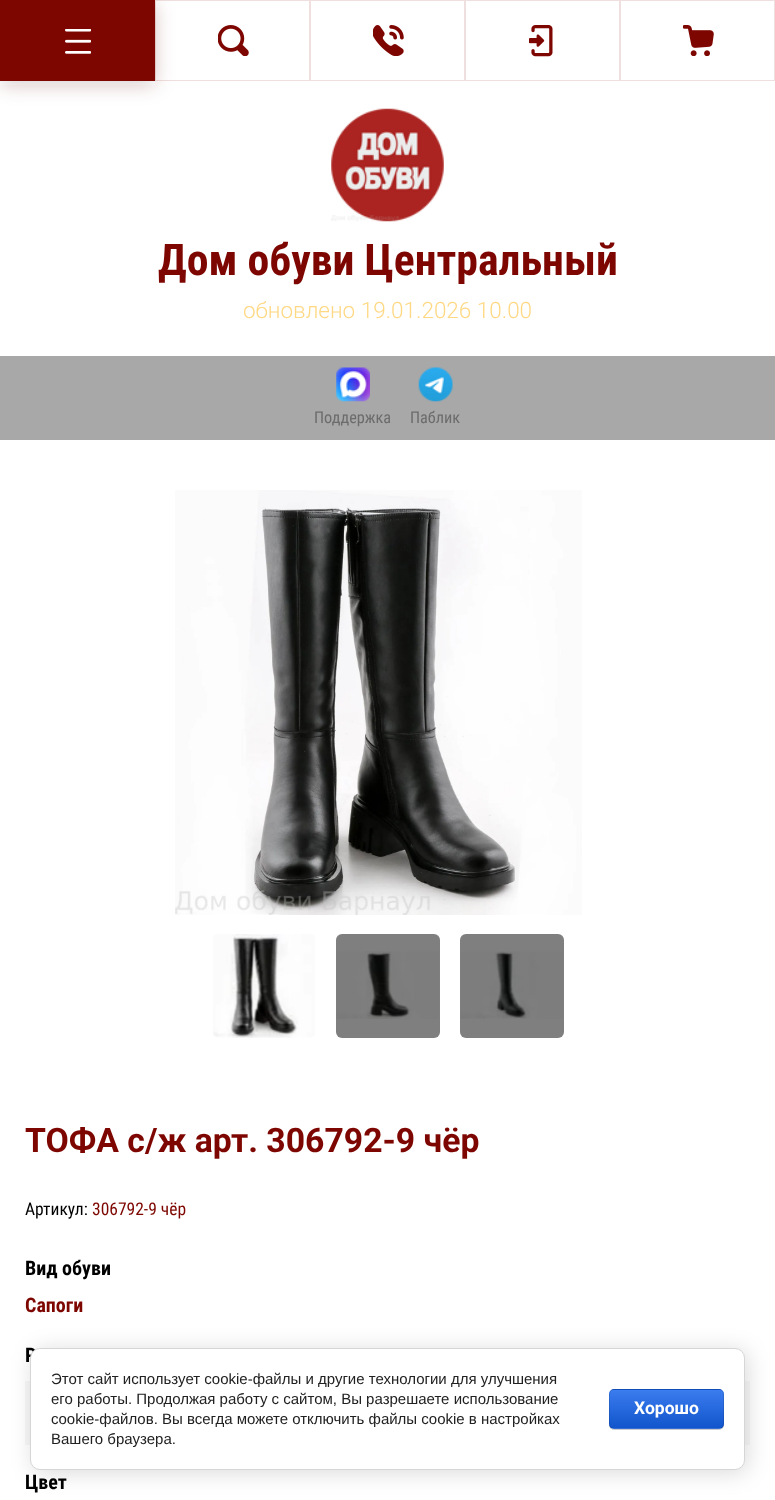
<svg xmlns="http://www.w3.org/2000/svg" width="775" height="1500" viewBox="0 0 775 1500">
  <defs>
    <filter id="blur1" x="-50%" y="-200%" width="200%" height="500%"><feGaussianBlur stdDeviation="9.5"/></filter>
    <filter id="blur2" x="-50%" y="-200%" width="200%" height="500%"><feGaussianBlur stdDeviation="11"/></filter>
    <filter id="blur3" x="-50%" y="-200%" width="200%" height="500%"><feGaussianBlur stdDeviation="0.5"/></filter>
    <clipPath id="clip1"><rect x="609" y="1389" width="115" height="40" rx="5"/></clipPath>
    <linearGradient id="g1" gradientUnits="userSpaceOnUse" x1="666" y1="1353" x2="666" y2="1390"><stop offset="0" stop-color="#3b7cef"/><stop offset="1" stop-color="#1155cc"/></linearGradient>
    <linearGradient id="g2" gradientUnits="userSpaceOnUse" x1="666" y1="1390" x2="666" y2="1428"><stop offset="0" stop-color="#3b7cef"/><stop offset="1" stop-color="#1155cc"/></linearGradient>
    <linearGradient id="g3" gradientUnits="userSpaceOnUse" x1="666" y1="1428" x2="666" y2="1465"><stop offset="0" stop-color="#3b7cef"/><stop offset="1" stop-color="#1155cc"/></linearGradient>
  </defs>
  <rect width="100%" height="100%" fill="#ffffff"/>
  <rect x="0" y="4" width="155" height="81" fill="#5d2025" fill-opacity="0.23" filter="url(#blur1)"/>
  <rect x="0" y="0" width="155" height="81" fill="#7e0600"/>
  <image x="65" y="29" width="26" height="25" href="img1.png"/>
  <rect x="155.5" y="0.5" width="154" height="80" fill="none" stroke="#810600" stroke-opacity="0.13"/>
  <image x="218" y="25" width="31" height="31" href="img2.png"/>
  <rect x="310.5" y="0.5" width="154" height="80" fill="none" stroke="#efdfde"/>
  <image x="373" y="25" width="31" height="31" href="img3.png"/>
  <rect x="465.5" y="0.5" width="154" height="80" fill="none" stroke="#efdfde"/>
  <image x="529" y="25" width="24" height="32" href="img4.png"/>
  <rect x="620.5" y="0.5" width="154" height="80" fill="none" stroke="#efdfde"/>
  <image x="683" y="25" width="31" height="31" href="img5.png"/>
  <image x="331" y="108" width="113" height="114" href="img6.png"/>
  <text x="158" y="275" font-family="Roboto Condensed" font-size="43.75" font-weight="bold" fill="#7e0600">Дом обуви Центральный</text>
  <text x="243" y="318" font-family="Roboto" font-size="22.5" font-weight="300" fill="#ffd884">обновлено 19.01.2026 10.00</text>
  <rect x="0" y="356" width="775" height="84" fill="#a8a8a8"/>
  <image x="336" y="367" width="34" height="35" href="img7.png"/>
  <text x="314" y="423" font-family="Roboto Condensed" font-size="16.25" fill="#6c6c6c">Поддержка</text>
  <image x="418" y="367" width="35" height="35" href="img8.png"/>
  <text x="410" y="423" font-family="Roboto Condensed" font-size="16.25" fill="#6c6c6c">Паблик</text>
  <image x="175" y="490" width="407" height="425" href="img9.png"/>
  <image x="213" y="934" width="102" height="104" href="img10.png"/>
  <image x="336" y="951" width="103" height="68" href="img11.png"/>
  <rect x="336" y="934" width="104" height="104" rx="6" fill="#000000" fill-opacity="0.5"/>
  <image x="460" y="951" width="103" height="68" href="img12.png"/>
  <rect x="460" y="934" width="104" height="104" rx="6" fill="#000000" fill-opacity="0.5"/>
  <text x="25" y="1152" font-family="Roboto" font-size="33.75" font-weight="bold" fill="#7e0600">ТОФА с/ж арт. 306792-9 чёр</text>
  <text x="25" y="1215" font-family="Roboto Condensed" font-size="17.5" fill="#000000">Артикул:</text>
  <text x="92" y="1215" font-family="Roboto Condensed" font-size="17.5" fill="#7e0600">306792-9 чёр</text>
  <text x="25" y="1275" font-family="Roboto Condensed" font-size="20" font-weight="bold" fill="#000000">Вид обуви</text>
  <text x="25" y="1312" font-family="Roboto Condensed" font-size="20" font-weight="bold" fill="#7e0600">Сапоги</text>
  <text x="25" y="1362" font-family="Roboto Condensed" font-size="20" font-weight="bold" fill="#000000">Р</text>
  <rect x="25" y="1381" width="725" height="64" fill="#f7f7f7"/>
  <text x="25" y="1489" font-family="Roboto Condensed" font-size="20" font-weight="bold" fill="#000000">Цвет</text>
  <rect x="33" y="1350" width="715" height="123" rx="10" fill="#000000" fill-opacity="0.14" filter="url(#blur2)"/>
  <rect x="30.5" y="1348.5" width="714" height="121" rx="9.5" fill="#ffffff" stroke="#d6d6d6"/>
  <text x="51" y="1384" font-family="Liberation Sans" font-size="15" fill="#212121">Этот сайт использует cookie-файлы и другие технологии для улучшения</text>
  <text x="51" y="1404" font-family="Liberation Sans" font-size="15" fill="#212121">его работы. Продолжая работу с сайтом, Вы разрешаете использование</text>
  <text x="51" y="1424" font-family="Liberation Sans" font-size="15" fill="#212121">cookie-файлов. Вы всегда можете отключить файлы cookie в настройках</text>
  <text x="51" y="1444" font-family="Liberation Sans" font-size="15" fill="#212121">Вашего браузера.</text>
  <rect x="609" y="1390" width="115" height="40" rx="5" fill="#000000" fill-opacity="0.2" filter="url(#blur3)"/>
  <g clip-path="url(#clip1)">
    <rect x="609" y="1389" width="115" height="1" fill="url(#g1)"/>
    <rect x="609" y="1390" width="115" height="38" fill="url(#g2)"/>
    <rect x="609" y="1428" width="115" height="1" fill="url(#g3)"/>
  </g>
  <rect x="609.5" y="1389.5" width="114" height="39" rx="4.5" fill="none" stroke="#000000" stroke-opacity="0.1"/>
  <text x="634" y="1414" font-family="Roboto" font-size="17.5" font-weight="bold" fill="#ffffff">Хорошо</text>
</svg>
